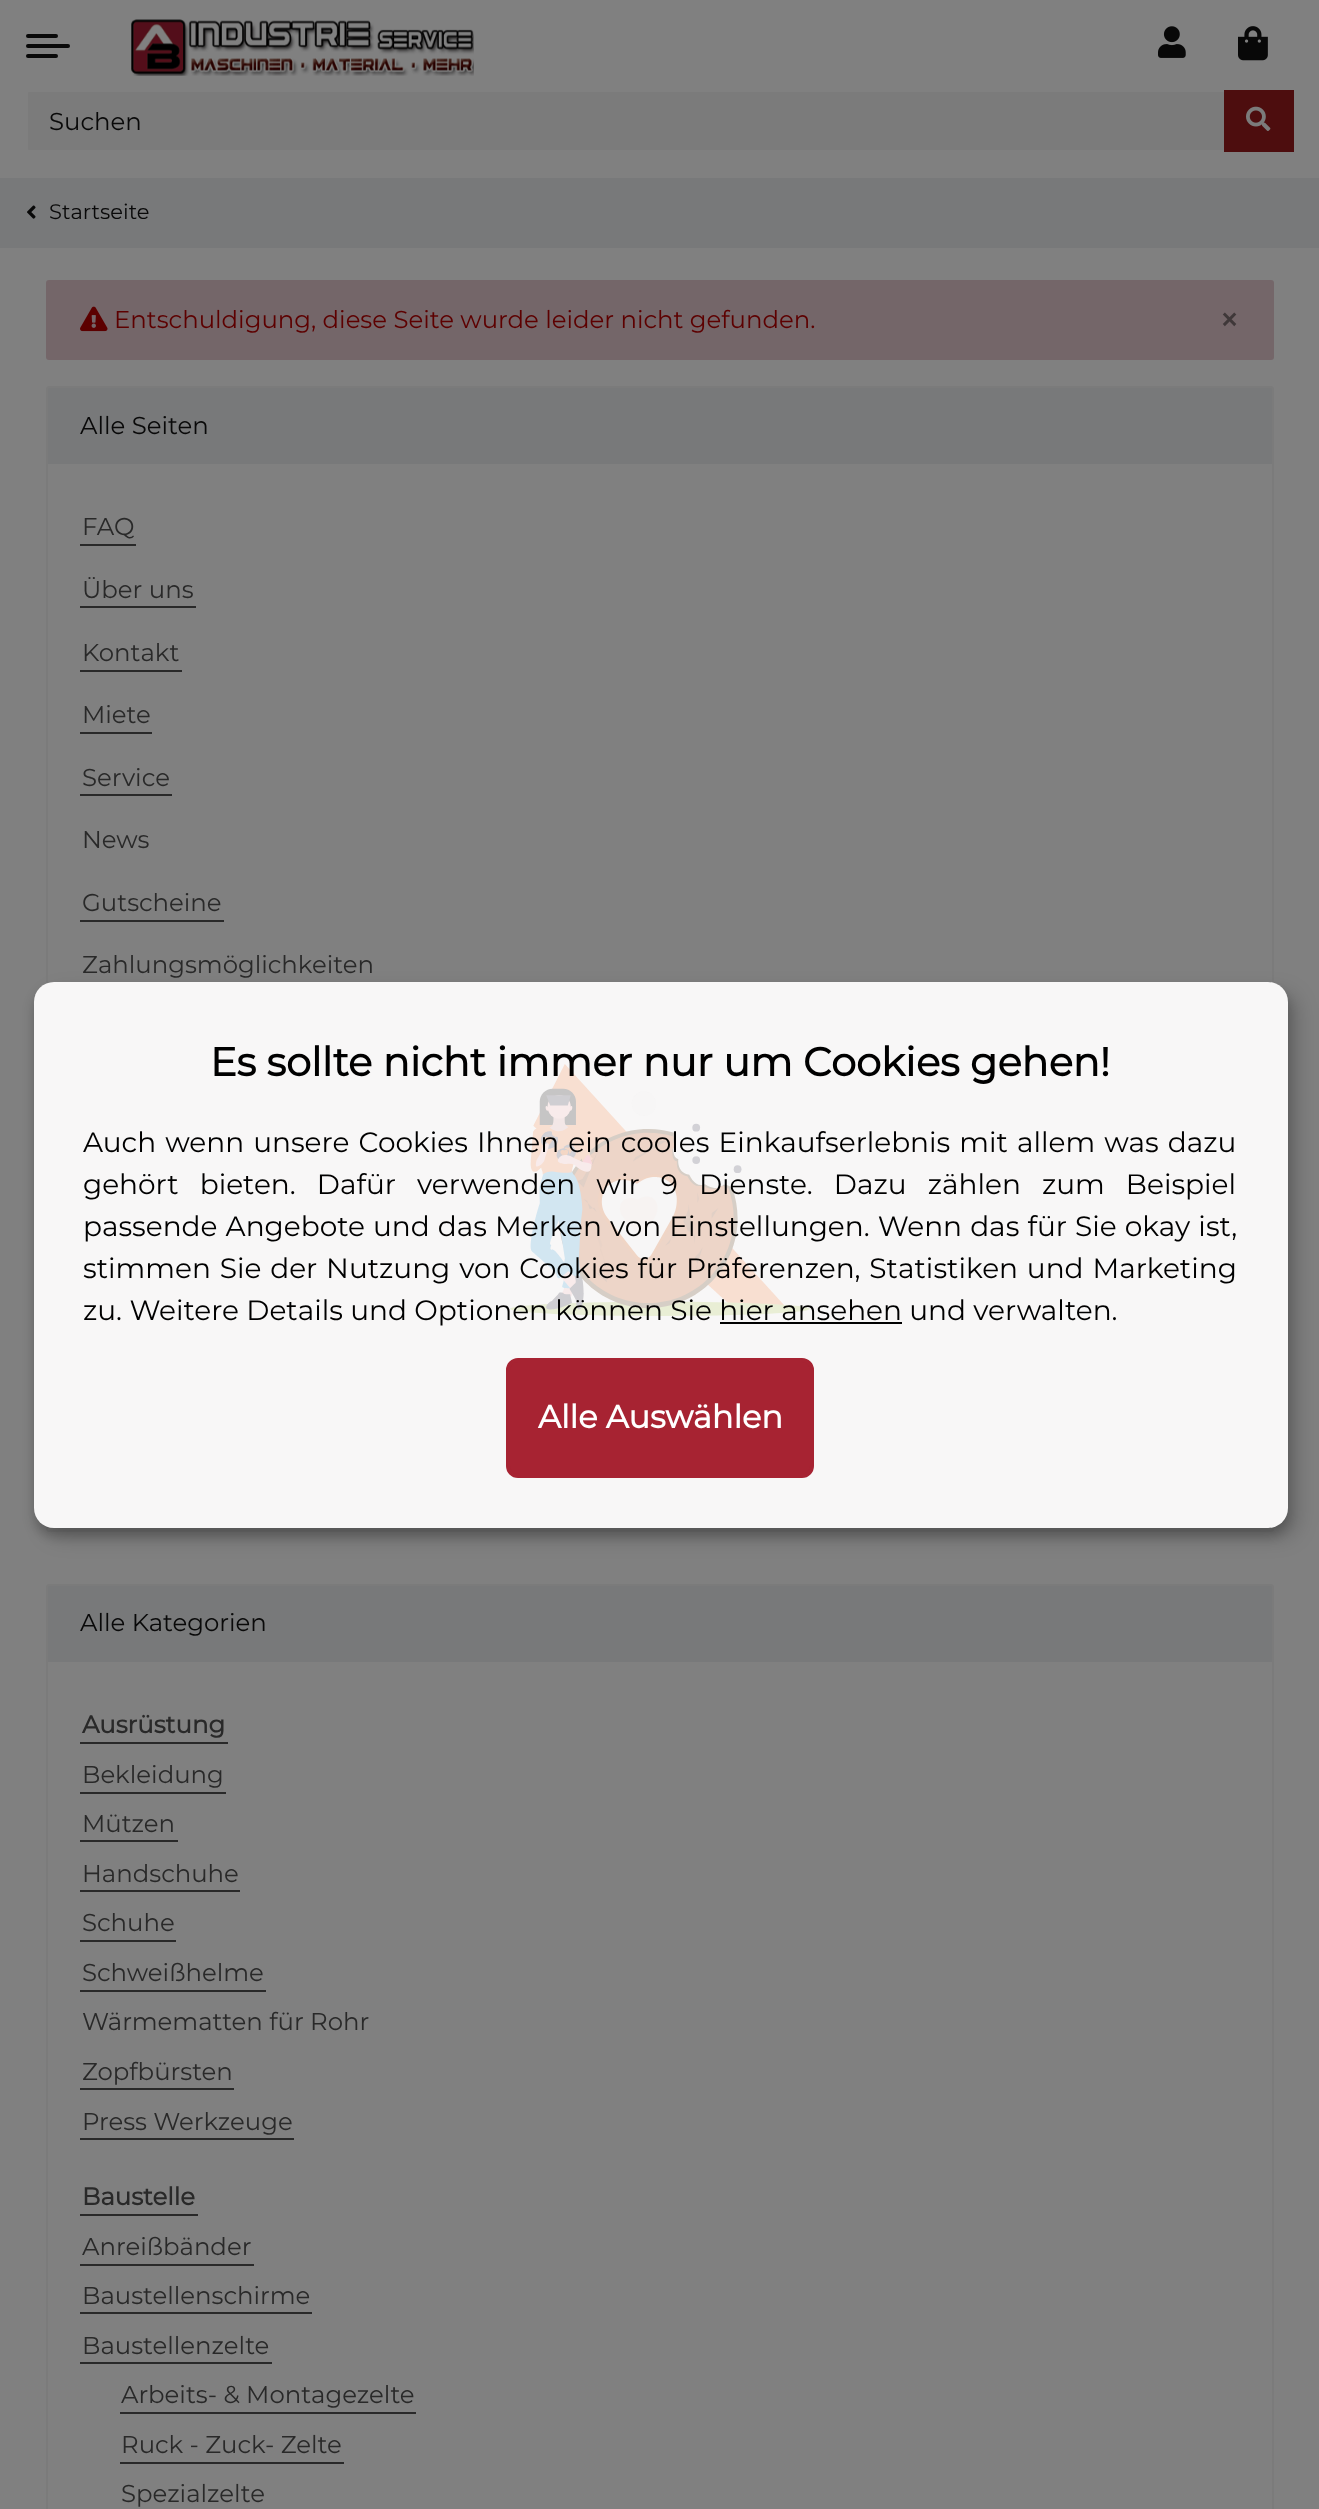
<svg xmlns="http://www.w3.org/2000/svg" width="1319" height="2509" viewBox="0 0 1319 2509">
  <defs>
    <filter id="blur1" x="-50%" y="-200%" width="200%" height="500%"><feGaussianBlur stdDeviation="10"/></filter>
    <filter id="blur2" x="-50%" y="-200%" width="200%" height="500%"><feGaussianBlur stdDeviation="6"/></filter>
  </defs>
  <rect width="100%" height="100%" fill="#808080"/>
  <rect x="26" y="44" width="44" height="4" rx="2" fill="#090909"/>
  <rect x="26" y="34" width="32" height="4" rx="2" fill="#090909"/>
  <rect x="26" y="54" width="32" height="4" rx="2" fill="#090909"/>
  <image x="131" y="19" width="343" height="57" href="img1.png"/>
  <image x="1158" y="26" width="28" height="32" href="img2.png"/>
  <image x="1238" y="26" width="30" height="35" href="img3.png"/>
  <rect x="28" y="92" width="1196" height="58" rx="1" fill="#7b7b7b"/>
  <text x="49" y="130" font-family="Montserrat" font-size="24.4" fill="#090909">Suchen</text>
  <rect x="1224" y="90" width="70" height="62" fill="#4d0d0e"/>
  <image x="1246" y="106" width="25" height="25" href="img4.png"/>
  <rect x="0" y="178" width="1319" height="70" fill="#78797a"/>
  <image x="27" y="205" width="9" height="14" href="img5.png"/>
  <text x="49" y="219" font-family="Montserrat" font-size="21" fill="#090909">Startseite</text>
  <rect x="47" y="281" width="1226" height="78" rx="2" fill="#746669" stroke="#746669" stroke-width="2"/>
  <image x="80" y="306" width="28" height="26" href="img6.png"/>
  <text x="114" y="328" font-family="Montserrat" font-size="24.4" fill="#5d0000">Entschuldigung, diese Seite wurde leider nicht gefunden.</text>
  <text x="1219" y="332" font-family="Montserrat" font-size="35" font-weight="bold" fill="#3f3839">×</text>
  <rect x="47" y="387" width="1226" height="1144" rx="2" fill="none" stroke="#7b7b7b" stroke-width="2"/>
  <path d="M49 388H1271C1271.5 388 1272 388.5 1272 389V464H48V389C48 388.5 48.5 388 49 388Z" fill="#78797a"/>
  <text x="80" y="434" font-family="Montserrat" font-size="24.4" fill="#090909">Alle Seiten</text>
  <text x="82" y="535" font-family="Montserrat" font-size="24.4" fill="#292929">FAQ</text>
  <rect x="80" y="544" width="56" height="2" fill="#292929"/>
  <text x="82" y="598" font-family="Montserrat" font-size="24.4" fill="#292929">Über uns</text>
  <rect x="80" y="606" width="116" height="2" fill="#292929"/>
  <text x="82" y="661" font-family="Montserrat" font-size="24.4" fill="#292929">Kontakt</text>
  <rect x="80" y="670" width="102" height="2" fill="#292929"/>
  <text x="82" y="723" font-family="Montserrat" font-size="24.4" fill="#292929">Miete</text>
  <rect x="80" y="732" width="72" height="2" fill="#292929"/>
  <text x="82" y="786" font-family="Montserrat" font-size="24.4" fill="#292929">Service</text>
  <rect x="80" y="794" width="92" height="2" fill="#292929"/>
  <text x="82" y="848" font-family="Montserrat" font-size="24.4" fill="#292929">News</text>
  <text x="82" y="911" font-family="Montserrat" font-size="24.4" fill="#292929">Gutscheine</text>
  <rect x="80" y="920" width="144" height="2" fill="#292929"/>
  <text x="82" y="973" font-family="Montserrat" font-size="24.4" fill="#292929">Zahlungsmöglichkeiten</text>
  <rect x="47" y="1585" width="1226" height="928" rx="2" fill="none" stroke="#7b7b7b" stroke-width="2"/>
  <path d="M49 1586H1271C1271.5 1586 1272 1586.5 1272 1587V1662H48V1587C48 1586.5 48.5 1586 49 1586Z" fill="#78797a"/>
  <text x="80" y="1631" font-family="Montserrat" font-size="24.4" fill="#090909">Alle Kategorien</text>
  <text x="82" y="1733" font-family="Montserrat" font-size="24.4" font-weight="bold" fill="#292929">Ausrüstung</text>
  <rect x="80" y="1742" width="148" height="2" fill="#292929"/>
  <text x="82" y="1783" font-family="Montserrat" font-size="24.4" fill="#292929">Bekleidung</text>
  <rect x="80" y="1792" width="146" height="2" fill="#292929"/>
  <text x="82" y="1832" font-family="Montserrat" font-size="24.4" fill="#292929">Mützen</text>
  <rect x="80" y="1840" width="98" height="2" fill="#292929"/>
  <text x="82" y="1882" font-family="Montserrat" font-size="24.4" fill="#292929">Handschuhe</text>
  <rect x="80" y="1890" width="160" height="2" fill="#292929"/>
  <text x="82" y="1931" font-family="Montserrat" font-size="24.4" fill="#292929">Schuhe</text>
  <rect x="80" y="1940" width="96" height="2" fill="#292929"/>
  <text x="82" y="1981" font-family="Montserrat" font-size="24.4" fill="#292929">Schweißhelme</text>
  <rect x="80" y="1990" width="186" height="2" fill="#292929"/>
  <text x="82" y="2030" font-family="Montserrat" font-size="24.4" fill="#292929">Wärmematten für Rohr</text>
  <text x="82" y="2080" font-family="Montserrat" font-size="24.4" fill="#292929">Zopfbürsten</text>
  <rect x="80" y="2088" width="154" height="2" fill="#292929"/>
  <text x="82" y="2130" font-family="Montserrat" font-size="24.4" fill="#292929">Press Werkzeuge</text>
  <rect x="80" y="2138" width="214" height="2" fill="#292929"/>
  <text x="82" y="2205" font-family="Montserrat" font-size="24.4" font-weight="bold" fill="#292929">Baustelle</text>
  <rect x="80" y="2214" width="118" height="2" fill="#292929"/>
  <text x="82" y="2255" font-family="Montserrat" font-size="24.4" fill="#292929">Anreißbänder</text>
  <rect x="80" y="2264" width="174" height="2" fill="#292929"/>
  <text x="82" y="2304" font-family="Montserrat" font-size="24.4" fill="#292929">Baustellenschirme</text>
  <rect x="80" y="2312" width="232" height="2" fill="#292929"/>
  <text x="82" y="2354" font-family="Montserrat" font-size="24.4" fill="#292929">Baustellenzelte</text>
  <rect x="80" y="2362" width="192" height="2" fill="#292929"/>
  <text x="121" y="2403" font-family="Montserrat" font-size="24.4" fill="#292929">Arbeits- &amp; Montagezelte</text>
  <rect x="120" y="2412" width="296" height="2" fill="#292929"/>
  <text x="121" y="2453" font-family="Montserrat" font-size="24.4" fill="#292929">Ruck - Zuck- Zelte</text>
  <rect x="120" y="2462" width="224" height="2" fill="#292929"/>
  <text x="121" y="2502" font-family="Montserrat" font-size="24.4" fill="#292929">Spezialzelte</text>
  <rect x="44" y="992" width="1254" height="546" rx="20" fill="#000000" fill-opacity="0.19" filter="url(#blur1)"/>
  <rect x="34" y="990" width="1254" height="546" rx="20" fill="#000000" fill-opacity="0.2" filter="url(#blur2)"/>
  <rect x="34" y="982" width="1254" height="546" rx="20" fill="#f8f7f7"/>
  <image x="510" y="1064" width="300" height="252" href="img7.png"/>
  <text x="210" y="1076" font-family="Montserrat" font-size="40" font-weight="bold" fill="#000000">Es sollte nicht immer nur um Cookies gehen!</text>
  <text x="83" y="1152" word-spacing="1.75" font-family="Montserrat" font-size="28" fill="#000000">Auch wenn unsere Cookies Ihnen ein cooles Einkaufserlebnis mit allem was dazu</text>
  <text x="83" y="1194" word-spacing="13.75" font-family="Montserrat" font-size="28" fill="#000000">gehört bieten. Dafür verwenden wir 9 Dienste. Dazu zählen zum Beispiel</text>
  <text x="83" y="1236" word-spacing="0.75" font-family="Montserrat" font-size="28" fill="#000000">passende Angebote und das Merken von Einstellungen. Wenn das für Sie okay ist,</text>
  <text x="83" y="1278" word-spacing="1.5" font-family="Montserrat" font-size="28" fill="#000000">stimmen Sie der Nutzung von Cookies für Präferenzen, Statistiken und Marketing</text>
  <text x="83" y="1320" font-family="Montserrat" font-size="28" fill="#000000">zu. Weitere Details und Optionen können Sie hier ansehen und verwalten.</text>
  <rect x="720" y="1322" width="182" height="2" fill="#000000"/>
  <rect x="508" y="1360" width="304" height="116" rx="10" fill="#a72332" stroke="#a72332" stroke-width="4"/>
  <text x="538" y="1428" font-family="Montserrat" font-size="32" font-weight="bold" fill="#ffffff">Alle Auswählen</text>
</svg>
